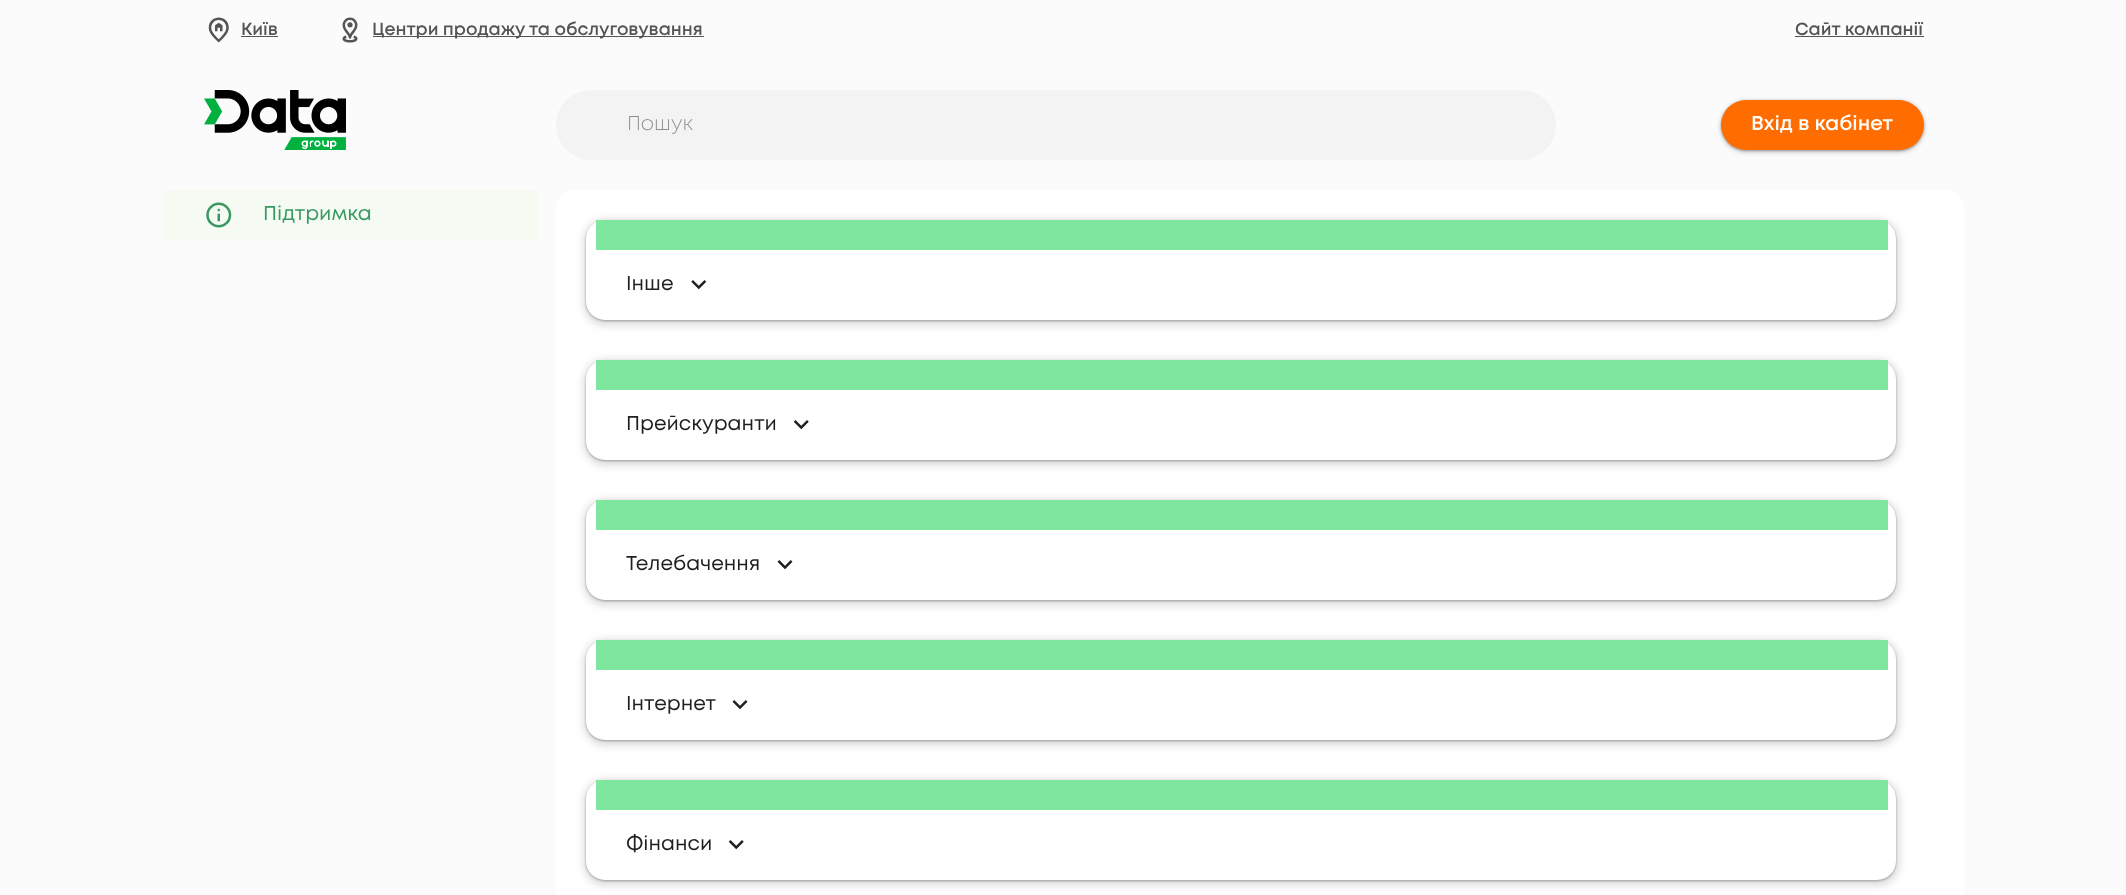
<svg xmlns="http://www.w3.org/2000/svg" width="2126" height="895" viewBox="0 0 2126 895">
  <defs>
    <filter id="blur1" x="-50%" y="-200%" width="200%" height="500%"><feGaussianBlur stdDeviation="1"/></filter>
    <filter id="blur2" x="-50%" y="-200%" width="200%" height="500%"><feGaussianBlur stdDeviation="2"/></filter>
    <clipPath id="clip1"><path d="M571 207H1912V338H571ZM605 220H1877C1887.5 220 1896 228.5 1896 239V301C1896 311.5 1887.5 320 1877 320H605C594.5 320 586 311.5 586 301V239C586 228.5 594.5 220 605 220Z" clip-rule="evenodd"/></clipPath>
    <filter id="blur3" x="-50%" y="-200%" width="200%" height="500%"><feGaussianBlur stdDeviation="4"/></filter>
    <clipPath id="clip2"><path d="M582 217H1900V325H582ZM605 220H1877C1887.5 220 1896 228.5 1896 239V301C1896 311.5 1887.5 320 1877 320H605C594.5 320 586 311.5 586 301V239C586 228.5 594.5 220 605 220Z" clip-rule="evenodd"/></clipPath>
    <clipPath id="clip3"><path d="M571 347H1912V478H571ZM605 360H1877C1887.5 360 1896 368.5 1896 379V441C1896 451.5 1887.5 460 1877 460H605C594.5 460 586 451.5 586 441V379C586 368.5 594.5 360 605 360Z" clip-rule="evenodd"/></clipPath>
    <clipPath id="clip4"><path d="M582 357H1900V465H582ZM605 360H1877C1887.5 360 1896 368.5 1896 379V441C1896 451.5 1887.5 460 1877 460H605C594.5 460 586 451.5 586 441V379C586 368.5 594.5 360 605 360Z" clip-rule="evenodd"/></clipPath>
    <clipPath id="clip5"><path d="M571 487H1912V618H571ZM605 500H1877C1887.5 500 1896 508.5 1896 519V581C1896 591.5 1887.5 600 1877 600H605C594.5 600 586 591.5 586 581V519C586 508.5 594.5 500 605 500Z" clip-rule="evenodd"/></clipPath>
    <clipPath id="clip6"><path d="M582 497H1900V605H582ZM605 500H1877C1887.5 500 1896 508.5 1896 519V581C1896 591.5 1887.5 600 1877 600H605C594.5 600 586 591.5 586 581V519C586 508.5 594.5 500 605 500Z" clip-rule="evenodd"/></clipPath>
    <clipPath id="clip7"><path d="M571 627H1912V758H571ZM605 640H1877C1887.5 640 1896 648.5 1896 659V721C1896 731.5 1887.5 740 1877 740H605C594.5 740 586 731.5 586 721V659C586 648.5 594.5 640 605 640Z" clip-rule="evenodd"/></clipPath>
    <clipPath id="clip8"><path d="M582 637H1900V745H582ZM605 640H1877C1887.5 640 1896 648.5 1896 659V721C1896 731.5 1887.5 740 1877 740H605C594.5 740 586 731.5 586 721V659C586 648.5 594.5 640 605 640Z" clip-rule="evenodd"/></clipPath>
    <clipPath id="clip9"><path d="M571 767H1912V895H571ZM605 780H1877C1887.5 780 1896 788.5 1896 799V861C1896 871.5 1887.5 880 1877 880H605C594.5 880 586 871.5 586 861V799C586 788.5 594.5 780 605 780Z" clip-rule="evenodd"/></clipPath>
    <clipPath id="clip10"><path d="M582 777H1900V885H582ZM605 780H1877C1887.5 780 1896 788.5 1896 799V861C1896 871.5 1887.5 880 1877 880H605C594.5 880 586 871.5 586 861V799C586 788.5 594.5 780 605 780Z" clip-rule="evenodd"/></clipPath>
  </defs>
  <rect width="100%" height="100%" fill="#fbfbfb"/>
  <image x="208" y="17" width="21" height="26" href="img1.png"/>
  <text x="241" y="35" font-family="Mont" font-size="17.5" font-weight="600" fill="#545454">Київ</text>
  <rect x="241" y="36" width="37" height="1" fill="#545454"/>
  <image x="342" y="17" width="16" height="26" href="img2.png"/>
  <rect x="373" y="36" width="331" height="1" fill="#545454"/>
  <text x="372" y="35" font-family="Mont" font-size="17.5" font-weight="600" fill="#545454">Центри продажу та обслуговування</text>
  <text x="1795" y="35" font-family="Mont" font-size="17.5" font-weight="600" fill="#545454">Сайт компанії</text>
  <rect x="1795" y="36" width="129" height="1" fill="#545454"/>
  <image x="204" y="90" width="142" height="60" href="img3.png"/>
  <rect x="556" y="90" width="1000" height="70" rx="35" fill="#f3f3f3"/>
  <text x="627" y="130" font-family="Mont" font-size="20" font-weight="300" fill="#8e8f90">Пошук</text>
  <rect x="1721" y="101" width="203" height="50" rx="25" fill="#000000" fill-opacity="0.3" filter="url(#blur1)"/>
  <rect x="1720" y="100" width="205" height="53" rx="26.5" fill="#000000" fill-opacity="0.15" filter="url(#blur2)"/>
  <rect x="1721" y="100" width="203" height="50" rx="25" fill="#ff6d00"/>
  <text x="1751" y="130" font-family="Mont" font-size="20" font-weight="600" fill="#ffffff">Вхід в кабінет</text>
  <rect x="164" y="190" width="375" height="50" fill="#f5fbf3"/>
  <image x="206" y="202" width="26" height="26" href="img4.png"/>
  <text x="263" y="220" font-family="Mont" font-size="20" fill="#399963">Підтримка</text>
  <rect x="556" y="190" width="1408" height="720" rx="19" fill="#ffffff"/>
  <g clip-path="url(#clip1)">
    <rect x="584" y="220" width="1315" height="105" rx="21" fill="#000000" fill-opacity="0.15" filter="url(#blur3)"/>
  </g>
  <g clip-path="url(#clip2)">
    <rect x="586" y="221" width="1310" height="100" rx="19" fill="#000000" fill-opacity="0.3" filter="url(#blur1)"/>
  </g>
  <rect x="596" y="220" width="1292" height="30" fill="#7ee69f"/>
  <text x="626" y="290" font-family="Mont" font-size="20" fill="#1f1f1f">Інше</text>
  <image x="691" y="280" width="16" height="10" href="img5.png"/>
  <g clip-path="url(#clip3)">
    <rect x="584" y="360" width="1315" height="105" rx="21" fill="#000000" fill-opacity="0.15" filter="url(#blur3)"/>
  </g>
  <g clip-path="url(#clip4)">
    <rect x="586" y="361" width="1310" height="100" rx="19" fill="#000000" fill-opacity="0.3" filter="url(#blur1)"/>
  </g>
  <rect x="596" y="360" width="1292" height="30" fill="#7ee69f"/>
  <text x="626" y="430" font-family="Mont" font-size="20" fill="#1f1f1f">Прейскуранти</text>
  <image x="793" y="420" width="16" height="10" href="img6.png"/>
  <g clip-path="url(#clip5)">
    <rect x="584" y="500" width="1315" height="105" rx="21" fill="#000000" fill-opacity="0.15" filter="url(#blur3)"/>
  </g>
  <g clip-path="url(#clip6)">
    <rect x="586" y="501" width="1310" height="100" rx="19" fill="#000000" fill-opacity="0.3" filter="url(#blur1)"/>
  </g>
  <rect x="596" y="500" width="1292" height="30" fill="#7ee69f"/>
  <text x="626" y="570" font-family="Mont" font-size="20" fill="#1f1f1f">Телебачення</text>
  <image x="777" y="560" width="16" height="10" href="img7.png"/>
  <g clip-path="url(#clip7)">
    <rect x="584" y="640" width="1315" height="105" rx="21" fill="#000000" fill-opacity="0.15" filter="url(#blur3)"/>
  </g>
  <g clip-path="url(#clip8)">
    <rect x="586" y="641" width="1310" height="100" rx="19" fill="#000000" fill-opacity="0.3" filter="url(#blur1)"/>
  </g>
  <rect x="596" y="640" width="1292" height="30" fill="#7ee69f"/>
  <text x="626" y="710" font-family="Mont" font-size="20" fill="#1f1f1f">Інтернет</text>
  <image x="732" y="700" width="16" height="10" href="img7.png"/>
  <g clip-path="url(#clip9)">
    <rect x="584" y="780" width="1315" height="105" rx="21" fill="#000000" fill-opacity="0.15" filter="url(#blur3)"/>
  </g>
  <g clip-path="url(#clip10)">
    <rect x="586" y="781" width="1310" height="100" rx="19" fill="#000000" fill-opacity="0.3" filter="url(#blur1)"/>
  </g>
  <rect x="596" y="780" width="1292" height="30" fill="#7ee69f"/>
  <text x="626" y="850" font-family="Mont" font-size="20" fill="#1f1f1f">Фінанси</text>
  <image x="728" y="840" width="16" height="10" href="img6.png"/>
</svg>
